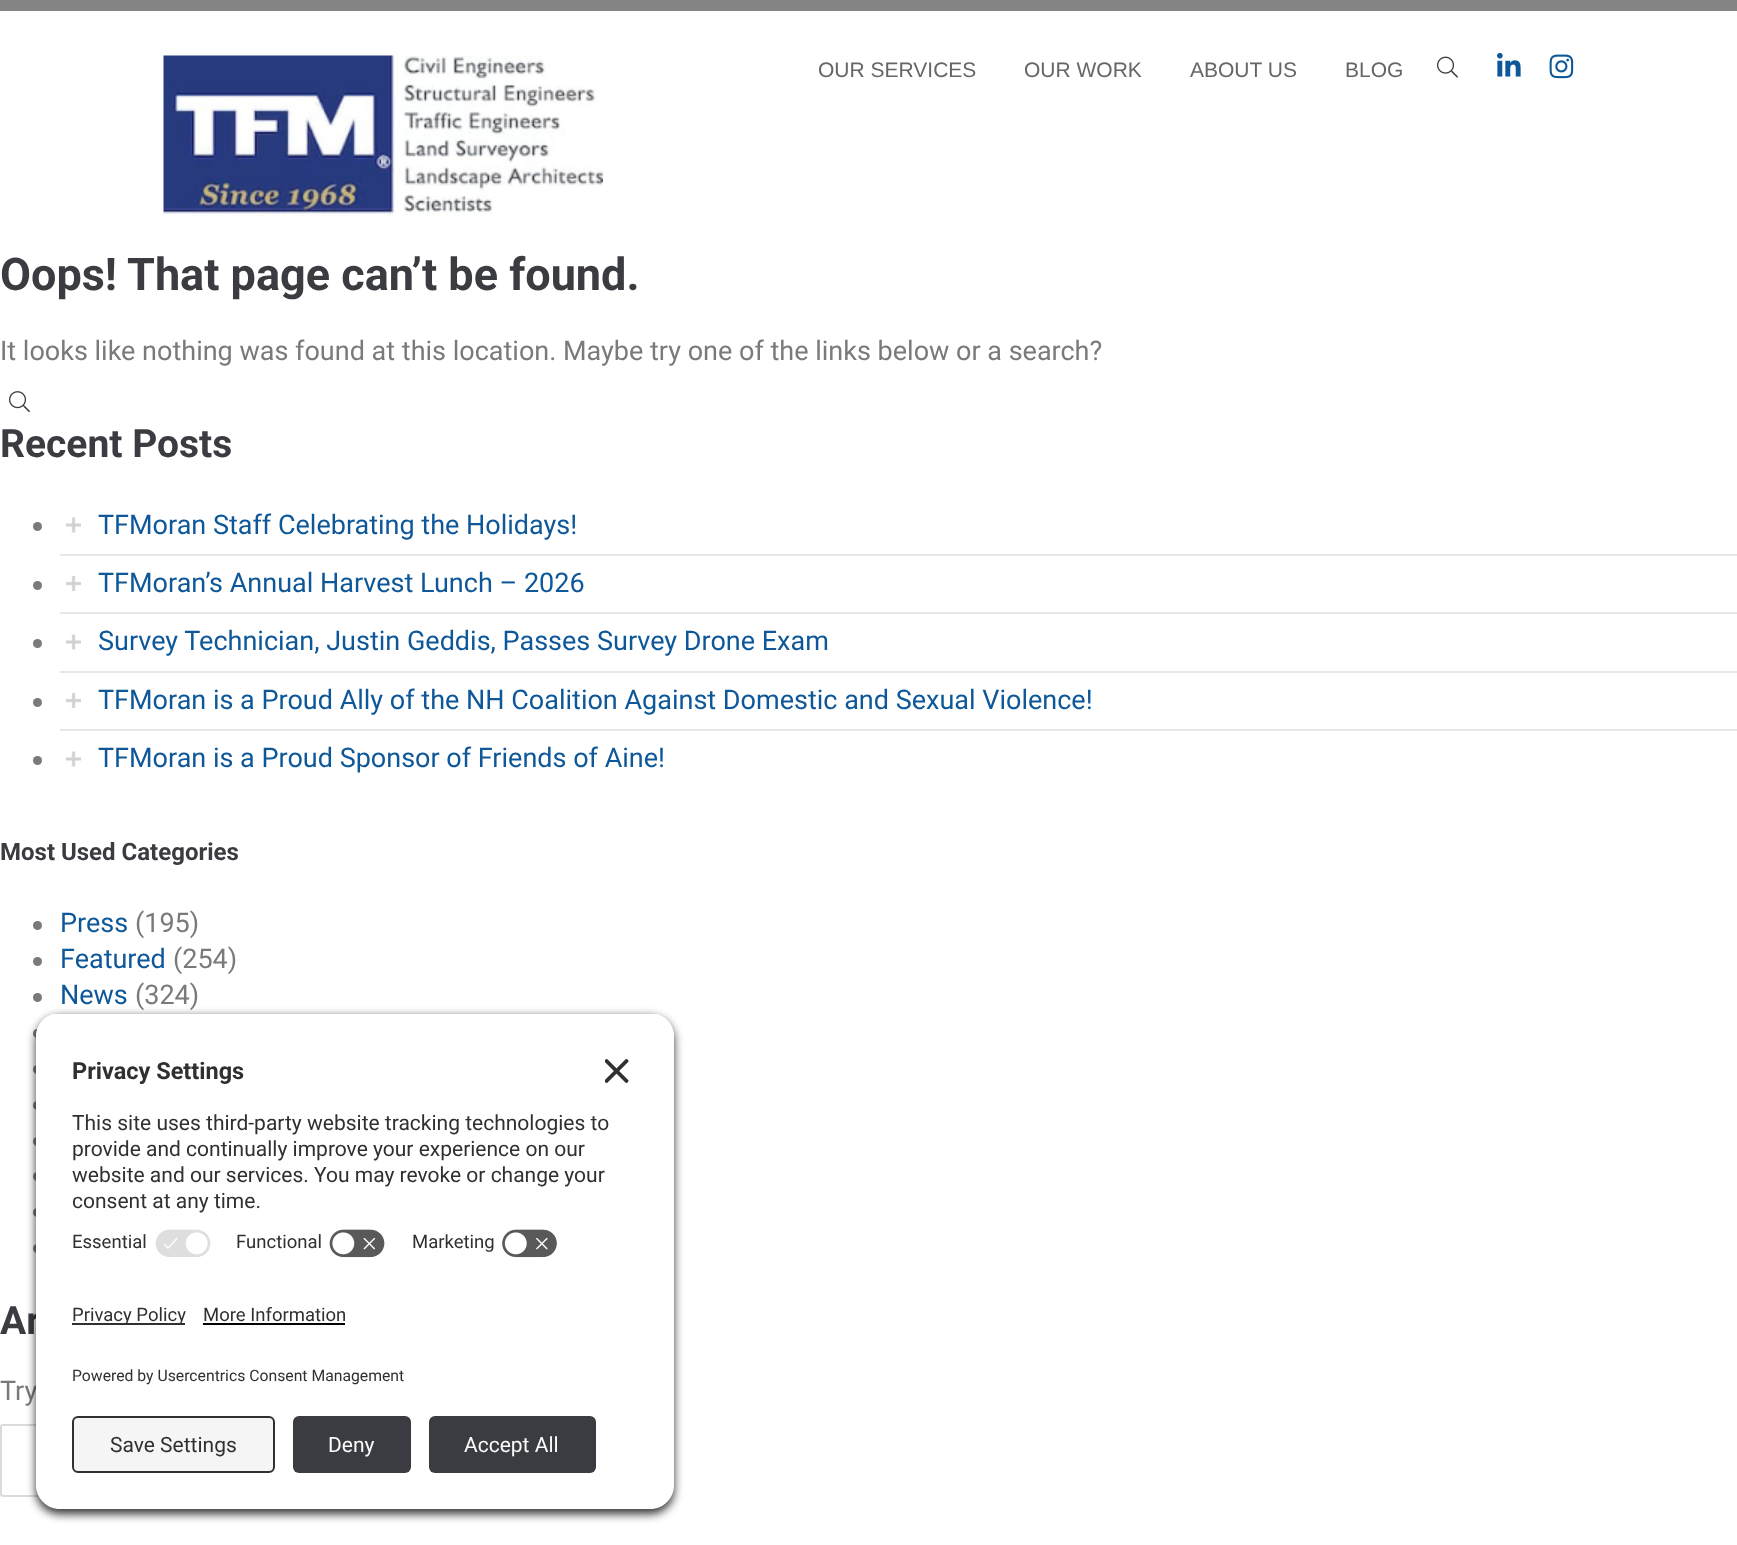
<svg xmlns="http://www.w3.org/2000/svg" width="1737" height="1545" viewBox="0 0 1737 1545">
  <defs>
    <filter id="blur1" x="-50%" y="-200%" width="200%" height="500%"><feGaussianBlur stdDeviation="5"/></filter>
    <clipPath id="clip1"><path d="M60 1013H650C663.5 1013 674 1023.5 674 1037V1281H36V1037C36 1023.5 46.5 1013 60 1013Z"/></clipPath>
  </defs>
  <rect width="100%" height="100%" fill="#ffffff"/>
  <rect x="0" y="0" width="1737" height="11" fill="#848484"/>
  <image x="163" y="55" width="440" height="162" href="img1.png"/>
  <text x="818" y="77" font-family="Liberation Sans" font-size="21" fill="#666666">OUR SERVICES</text>
  <text x="1024" y="77" font-family="Liberation Sans" font-size="21" fill="#666666">OUR WORK</text>
  <text x="1190" y="77" font-family="Liberation Sans" font-size="21" fill="#666666">ABOUT US</text>
  <text x="1345" y="77" font-family="Liberation Sans" font-size="21" fill="#666666">BLOG</text>
  <image x="1437" y="56" width="21" height="22" href="img2.png"/>
  <image x="1497" y="52" width="24" height="25" href="img3.png"/>
  <image x="1549" y="54" width="25" height="25" href="img4.png"/>
  <text x="0" y="290" font-family="Roboto" font-size="45" font-weight="bold" fill="#3b3c41">Oops! That page can’t be found.</text>
  <text x="0" y="360" font-family="Roboto" font-size="27" fill="#7a7a7a">It looks like nothing was found at this location. Maybe try one of the links below or a search?</text>
  <image x="9" y="391" width="21" height="22" href="img5.png"/>
  <text x="0" y="457" font-family="Roboto" font-size="39" font-weight="bold" fill="#3b3c41">Recent Posts</text>
  <image x="66" y="517" width="15" height="16" href="img6.png"/>
  <rect x="60" y="554" width="1677" height="2" fill="#e7e7e7"/>
  <circle cx="37.5" cy="526.5" r="4.5" fill="#7a7a7a"/>
  <text x="98" y="534" font-family="Roboto" font-size="27" fill="#0e5899">TFMoran Staff Celebrating the Holidays!</text>
  <image x="66" y="576" width="15" height="15" href="img7.png"/>
  <rect x="60" y="612" width="1677" height="2" fill="#e7e7e7"/>
  <circle cx="37.5" cy="585.5" r="4.5" fill="#7a7a7a"/>
  <text x="98" y="592" font-family="Roboto" font-size="27" fill="#0e5899">TFMoran’s Annual Harvest Lunch – 2026</text>
  <image x="66" y="634" width="15" height="16" href="img6.png"/>
  <rect x="60" y="671" width="1677" height="2" fill="#e7e7e7"/>
  <circle cx="37.5" cy="643.5" r="4.5" fill="#7a7a7a"/>
  <text x="98" y="650" font-family="Roboto" font-size="27" fill="#0e5899">Survey Technician, Justin Geddis, Passes Survey Drone Exam</text>
  <image x="66" y="693" width="15" height="15" href="img7.png"/>
  <rect x="60" y="729" width="1677" height="2" fill="#e7e7e7"/>
  <circle cx="37.5" cy="702.5" r="4.5" fill="#7a7a7a"/>
  <text x="98" y="709" font-family="Roboto" font-size="27" fill="#0e5899">TFMoran is a Proud Ally of the NH Coalition Against Domestic and Sexual Violence!</text>
  <image x="66" y="751" width="15" height="16" href="img6.png"/>
  <circle cx="37.5" cy="760.5" r="4.5" fill="#7a7a7a"/>
  <text x="98" y="767" font-family="Roboto" font-size="27" fill="#0e5899">TFMoran is a Proud Sponsor of Friends of Aine!</text>
  <text x="0" y="860" font-family="Roboto" font-size="24" font-weight="bold" fill="#3b3c41">Most Used Categories</text>
  <circle cx="37.5" cy="925.5" r="4.5" fill="#7a7a7a"/>
  <text x="60" y="932" font-family="Roboto" font-size="27" fill="#0e5899">Press</text>
  <text x="135" y="932" font-family="Roboto" font-size="27" fill="#7a7a7a">(195)</text>
  <circle cx="37.5" cy="961.5" r="4.5" fill="#7a7a7a"/>
  <text x="60" y="968" font-family="Roboto" font-size="27" fill="#0e5899">Featured</text>
  <text x="173" y="968" font-family="Roboto" font-size="27" fill="#7a7a7a">(254)</text>
  <circle cx="37.5" cy="997.5" r="4.5" fill="#7a7a7a"/>
  <text x="60" y="1004" font-family="Roboto" font-size="27" fill="#0e5899">News</text>
  <text x="135" y="1004" font-family="Roboto" font-size="27" fill="#7a7a7a">(324)</text>
  <circle cx="37.5" cy="1033.5" r="4.5" fill="#7a7a7a"/>
  <circle cx="37.5" cy="1069.5" r="4.5" fill="#7a7a7a"/>
  <circle cx="37.5" cy="1105.5" r="4.5" fill="#7a7a7a"/>
  <circle cx="37.5" cy="1141.5" r="4.5" fill="#7a7a7a"/>
  <circle cx="37.5" cy="1176.5" r="4.5" fill="#7a7a7a"/>
  <circle cx="37.5" cy="1212.5" r="4.5" fill="#7a7a7a"/>
  <circle cx="37.5" cy="1248.5" r="4.5" fill="#7a7a7a"/>
  <text x="0" y="1334" font-family="Roboto" font-size="39" font-weight="bold" fill="#3b3c41">Ar</text>
  <text x="0" y="1400" font-family="Roboto" font-size="27" fill="#7a7a7a">Try</text>
  <rect x="1" y="1425" width="235" height="71" rx="2" fill="none" stroke="#dbdbdb" stroke-width="2"/>
  <rect x="36" y="1017" width="638" height="497" rx="24" fill="#000000" fill-opacity="0.8" filter="url(#blur1)"/>
  <g clip-path="url(#clip1)">
    <rect x="36" y="1014" width="638" height="267" fill="#ffffff"/>
    <rect x="36" y="1014" width="638" height="207" fill="#ffffff"/>
  </g>
  <text x="72" y="1079" font-family="Roboto" font-size="23.5" font-weight="bold" fill="#303030">Privacy Settings</text>
  <image x="605" y="1059" width="24" height="24" href="img8.png"/>
  <text x="72" y="1130" font-family="Roboto" font-size="21" fill="#303030">This site uses third-party website tracking technologies to</text>
  <text x="72" y="1156" font-family="Roboto" font-size="21" fill="#303030">provide and continually improve your experience on our</text>
  <text x="72" y="1182" font-family="Roboto" font-size="21" fill="#303030">website and our services. You may revoke or change your</text>
  <text x="72" y="1208" font-family="Roboto" font-size="21" fill="#303030">consent at any time.</text>
  <text x="72" y="1248" font-family="Roboto" font-size="18.5" fill="#303030">Essential</text>
  <image x="155" y="1229" width="56" height="28" href="img9.png"/>
  <text x="236" y="1248" font-family="Roboto" font-size="18.5" fill="#303030">Functional</text>
  <image x="329" y="1229" width="56" height="29" href="img10.png"/>
  <text x="412" y="1248" font-family="Roboto" font-size="18.5" fill="#303030">Marketing</text>
  <image x="502" y="1229" width="55" height="29" href="img11.png"/>
  <path d="M36 1281H674V1485C674 1498.5 663.5 1509 650 1509H60C46.5 1509 36 1498.5 36 1485Z" fill="#ffffff"/>
  <rect x="72" y="1323" width="113" height="2" fill="#303030"/>
  <text x="72" y="1321" font-family="Roboto" font-size="18.5" fill="#303030">Privacy Policy</text>
  <text x="203" y="1321" font-family="Roboto" font-size="18.5" fill="#303030">More Information</text>
  <rect x="203" y="1323" width="142" height="2" fill="#000000"/>
  <text x="72" y="1381" font-family="Roboto" font-size="15.75" fill="#303030">Powered by Usercentrics Consent Management</text>
  <rect x="73" y="1417" width="201" height="55" rx="5" fill="#f5f5f5" stroke="#303030" stroke-width="2"/>
  <text x="110" y="1452" font-family="Roboto" font-size="21" fill="#303030">Save Settings</text>
  <rect x="293" y="1416" width="118" height="57" rx="6" fill="#3b3c41"/>
  <text x="328" y="1452" font-family="Roboto" font-size="21" fill="#fafafa">Deny</text>
  <rect x="429" y="1416" width="167" height="57" rx="6" fill="#3b3c41"/>
  <text x="464" y="1452" font-family="Roboto" font-size="21" fill="#fafafa">Accept All</text>
</svg>
